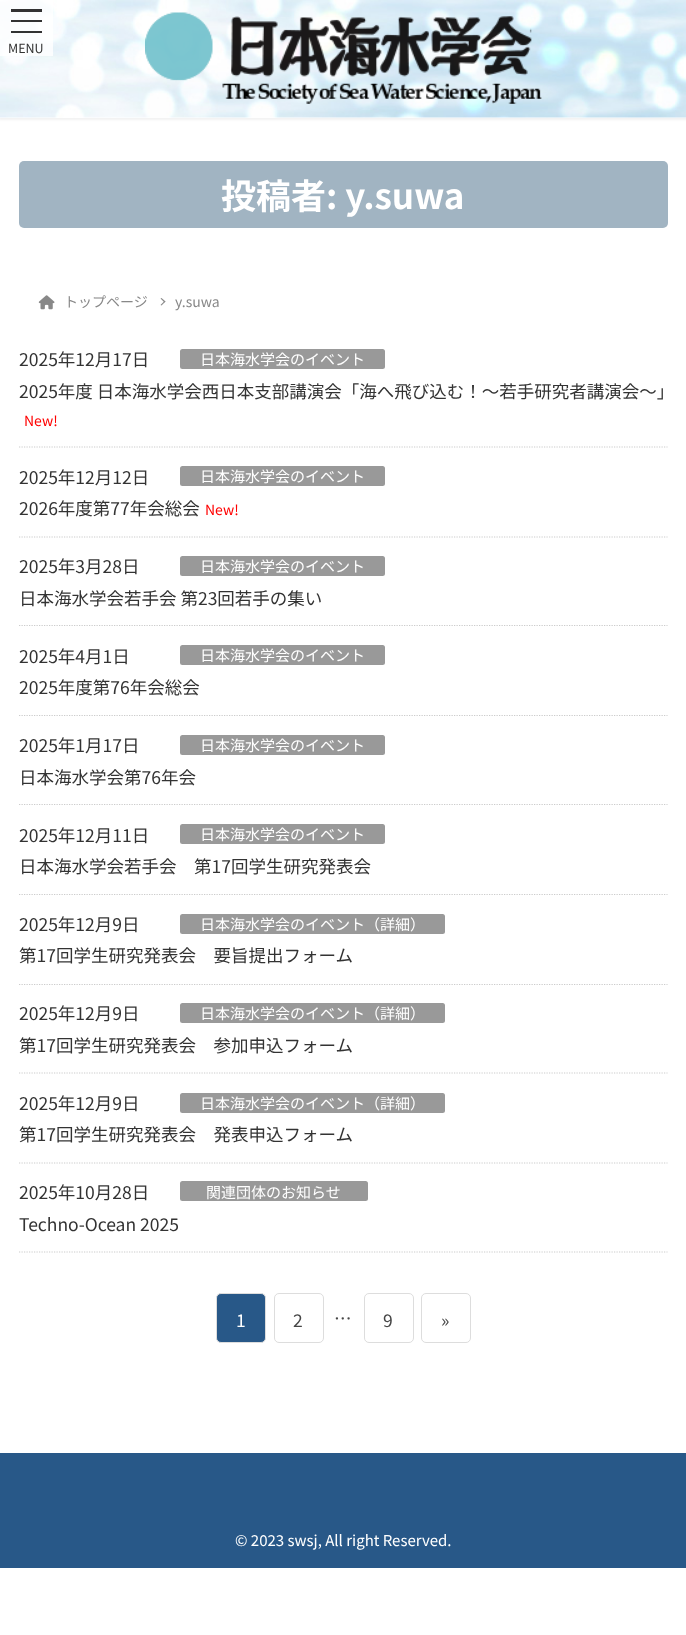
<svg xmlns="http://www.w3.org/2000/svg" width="686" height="1635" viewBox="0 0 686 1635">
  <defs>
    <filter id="blur1" x="-50%" y="-200%" width="200%" height="500%"><feGaussianBlur stdDeviation="1"/></filter>
  </defs>
  <rect width="100%" height="100%" fill="#ffffff"/>
  <rect x="-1" y="0" width="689" height="120" fill="#000000" fill-opacity="0.05" filter="url(#blur1)"/>
  <rect x="0" y="117" width="686" height="1" fill="#ffffff"/>
  <image x="0" y="0" width="686" height="118" href="img1.png"/>
  <rect x="0" y="0" width="53" height="56" fill="#ffffff" fill-opacity="0.8"/>
  <rect x="11" y="9" width="31" height="3" fill="#323233"/>
  <rect x="11" y="20" width="31" height="2" fill="#000000" fill-opacity="0.8"/>
  <rect x="11" y="31" width="31" height="2" fill="#000000" fill-opacity="0.8"/>
  <text x="8" y="53" font-family="Noto Sans JP" font-size="12.5" fill="#333333">MENU</text>
  <image x="145" y="12" width="397" height="92" href="img2.png"/>
  <rect x="19" y="161" width="649" height="67" rx="5" fill="#a1b4c2"/>
  <text x="221" y="209" font-family="Noto Sans JP" font-size="35" font-weight="bold" fill="#ffffff">投稿者: y.suwa</text>
  <image x="38" y="295" width="17" height="15" href="img3.png"/>
  <text x="64" y="307" font-family="Noto Sans JP" font-size="14" fill="#888888">トップページ</text>
  <path d="M161.5 298L165.5 301.5L164.5 302.5L160.5 298.5Z" fill="#888888"/>
  <path d="M164.5 301L165.5 301.5L161.5 305.5L160.5 305Z" fill="#888888"/>
  <text x="175" y="307" font-family="Noto Sans JP" font-size="14" fill="#888888">y.suwa</text>
  <path d="M19 447H667.5" fill="none" stroke="#cccccc" stroke-width="1.2" stroke-dasharray="1.25 1.25"/>
  <text x="19" y="366" font-family="Noto Sans JP" font-size="17.5" fill="#333333">2025年12月17日</text>
  <rect x="180" y="349" width="205" height="20" rx="2.5" fill="#999999"/>
  <text x="200" y="365" font-family="Noto Sans JP" font-size="15" fill="#ffffff">日本海水学会のイベント</text>
  <text x="19" y="398" font-family="Noto Sans JP" font-size="17.5" fill="#333333">2025年度 日本海水学会西日本支部講演会「海へ飛び込む！～若手研究者講演会～」</text>
  <text x="24" y="426" font-family="Noto Sans JP" font-size="14" fill="#ff0000">New!</text>
  <path d="M19 537H667.5" fill="none" stroke="#cccccc" stroke-width="1.2" stroke-dasharray="1.25 1.25"/>
  <text x="19" y="484" font-family="Noto Sans JP" font-size="17.5" fill="#333333">2025年12月12日</text>
  <rect x="180" y="466" width="205" height="20" rx="2.5" fill="#999999"/>
  <text x="200" y="482" font-family="Noto Sans JP" font-size="15" fill="#ffffff">日本海水学会のイベント</text>
  <text x="19" y="515" font-family="Noto Sans JP" font-size="17.5" fill="#333333">2026年度第77年会総会</text>
  <text x="205" y="515" font-family="Noto Sans JP" font-size="14" fill="#ff0000">New!</text>
  <path d="M19 625.5H667.5" fill="none" stroke="#cccccc" stroke-width="1.2" stroke-dasharray="1.25 1.25"/>
  <text x="19" y="573" font-family="Noto Sans JP" font-size="17.5" fill="#333333">2025年3月28日</text>
  <rect x="180" y="556" width="205" height="20" rx="2.5" fill="#999999"/>
  <text x="200" y="572" font-family="Noto Sans JP" font-size="15" fill="#ffffff">日本海水学会のイベント</text>
  <text x="19" y="605" font-family="Noto Sans JP" font-size="17.5" fill="#333333">日本海水学会若手会 第23回若手の集い</text>
  <path d="M19 715.5H667.5" fill="none" stroke="#cccccc" stroke-width="1.2" stroke-dasharray="1.25 1.25"/>
  <text x="19" y="663" font-family="Noto Sans JP" font-size="17.5" fill="#333333">2025年4月1日</text>
  <rect x="180" y="645" width="205" height="20" rx="2.5" fill="#999999"/>
  <text x="200" y="661" font-family="Noto Sans JP" font-size="15" fill="#ffffff">日本海水学会のイベント</text>
  <text x="19" y="694" font-family="Noto Sans JP" font-size="17.5" fill="#333333">2025年度第76年会総会</text>
  <path d="M19 804.5H667.5" fill="none" stroke="#cccccc" stroke-width="1.2" stroke-dasharray="1.25 1.25"/>
  <text x="19" y="752" font-family="Noto Sans JP" font-size="17.5" fill="#333333">2025年1月17日</text>
  <rect x="180" y="735" width="205" height="20" rx="2.5" fill="#999999"/>
  <text x="200" y="751" font-family="Noto Sans JP" font-size="15" fill="#ffffff">日本海水学会のイベント</text>
  <text x="19" y="784" font-family="Noto Sans JP" font-size="17.5" fill="#333333">日本海水学会第76年会</text>
  <path d="M19 894.5H667.5" fill="none" stroke="#cccccc" stroke-width="1.2" stroke-dasharray="1.25 1.25"/>
  <text x="19" y="842" font-family="Noto Sans JP" font-size="17.5" fill="#333333">2025年12月11日</text>
  <rect x="180" y="824" width="205" height="20" rx="2.5" fill="#999999"/>
  <text x="200" y="840" font-family="Noto Sans JP" font-size="15" fill="#ffffff">日本海水学会のイベント</text>
  <text x="19" y="873" font-family="Noto Sans JP" font-size="17.5" fill="#333333">日本海水学会若手会　第17回学生研究発表会</text>
  <path d="M19 984.5H667.5" fill="none" stroke="#cccccc" stroke-width="1.2" stroke-dasharray="1.25 1.25"/>
  <text x="19" y="931" font-family="Noto Sans JP" font-size="17.5" fill="#333333">2025年12月9日</text>
  <rect x="180" y="914" width="265" height="20" rx="2.5" fill="#999999"/>
  <text x="200" y="930" font-family="Noto Sans JP" font-size="15" fill="#ffffff">日本海水学会のイベント（詳細）</text>
  <text x="19" y="962" font-family="Noto Sans JP" font-size="17.5" fill="#333333">第17回学生研究発表会　要旨提出フォーム</text>
  <path d="M19 1073H667.5" fill="none" stroke="#cccccc" stroke-width="1.2" stroke-dasharray="1.25 1.25"/>
  <text x="19" y="1020" font-family="Noto Sans JP" font-size="17.5" fill="#333333">2025年12月9日</text>
  <rect x="180" y="1003" width="265" height="20" rx="2.5" fill="#999999"/>
  <text x="200" y="1019" font-family="Noto Sans JP" font-size="15" fill="#ffffff">日本海水学会のイベント（詳細）</text>
  <text x="19" y="1052" font-family="Noto Sans JP" font-size="17.5" fill="#333333">第17回学生研究発表会　参加申込フォーム</text>
  <path d="M19 1163H667.5" fill="none" stroke="#cccccc" stroke-width="1.2" stroke-dasharray="1.25 1.25"/>
  <text x="19" y="1110" font-family="Noto Sans JP" font-size="17.5" fill="#333333">2025年12月9日</text>
  <rect x="180" y="1093" width="265" height="20" rx="2.5" fill="#999999"/>
  <text x="200" y="1109" font-family="Noto Sans JP" font-size="15" fill="#ffffff">日本海水学会のイベント（詳細）</text>
  <text x="19" y="1141" font-family="Noto Sans JP" font-size="17.5" fill="#333333">第17回学生研究発表会　発表申込フォーム</text>
  <path d="M19 1252H667.5" fill="none" stroke="#cccccc" stroke-width="1.2" stroke-dasharray="1.25 1.25"/>
  <text x="19" y="1199" font-family="Noto Sans JP" font-size="17.5" fill="#333333">2025年10月28日</text>
  <rect x="180" y="1181" width="188" height="20" rx="2.5" fill="#999999"/>
  <text x="206" y="1198" font-family="Noto Sans JP" font-size="15" fill="#ffffff">関連団体のお知らせ</text>
  <text x="19" y="1231" font-family="Noto Sans JP" font-size="17.5" fill="#333333">Techno-Ocean 2025</text>
  <rect x="216.5" y="1293.5" width="49" height="49" rx="4.5" fill="#285888" stroke="#dddddd"/>
  <text x="236" y="1327" font-family="Noto Sans JP" font-size="17.5" fill="#ffffff">1</text>
  <rect x="274.5" y="1293.5" width="49" height="49" rx="4.5" fill="none" stroke="#dddddd"/>
  <text x="293" y="1327" font-family="Noto Sans JP" font-size="17.5" fill="#464646">2</text>
  <text x="334" y="1325" font-family="Noto Sans JP" font-size="17.5" fill="#464646">…</text>
  <rect x="364.5" y="1293.5" width="49" height="49" rx="4.5" fill="none" stroke="#dddddd"/>
  <text x="383" y="1327" font-family="Noto Sans JP" font-size="17.5" fill="#464646">9</text>
  <rect x="421.5" y="1293.5" width="49" height="49" rx="4.5" fill="none" stroke="#dddddd"/>
  <text x="441" y="1327" font-family="Noto Sans JP" font-size="17.5" fill="#464646">»</text>
  <rect x="0" y="1453" width="686" height="115" fill="#285888"/>
  <text x="235" y="1546" font-family="Noto Sans JP" font-size="15" fill="#ffffff">© 2023 swsj, All right Reserved.</text>
</svg>
